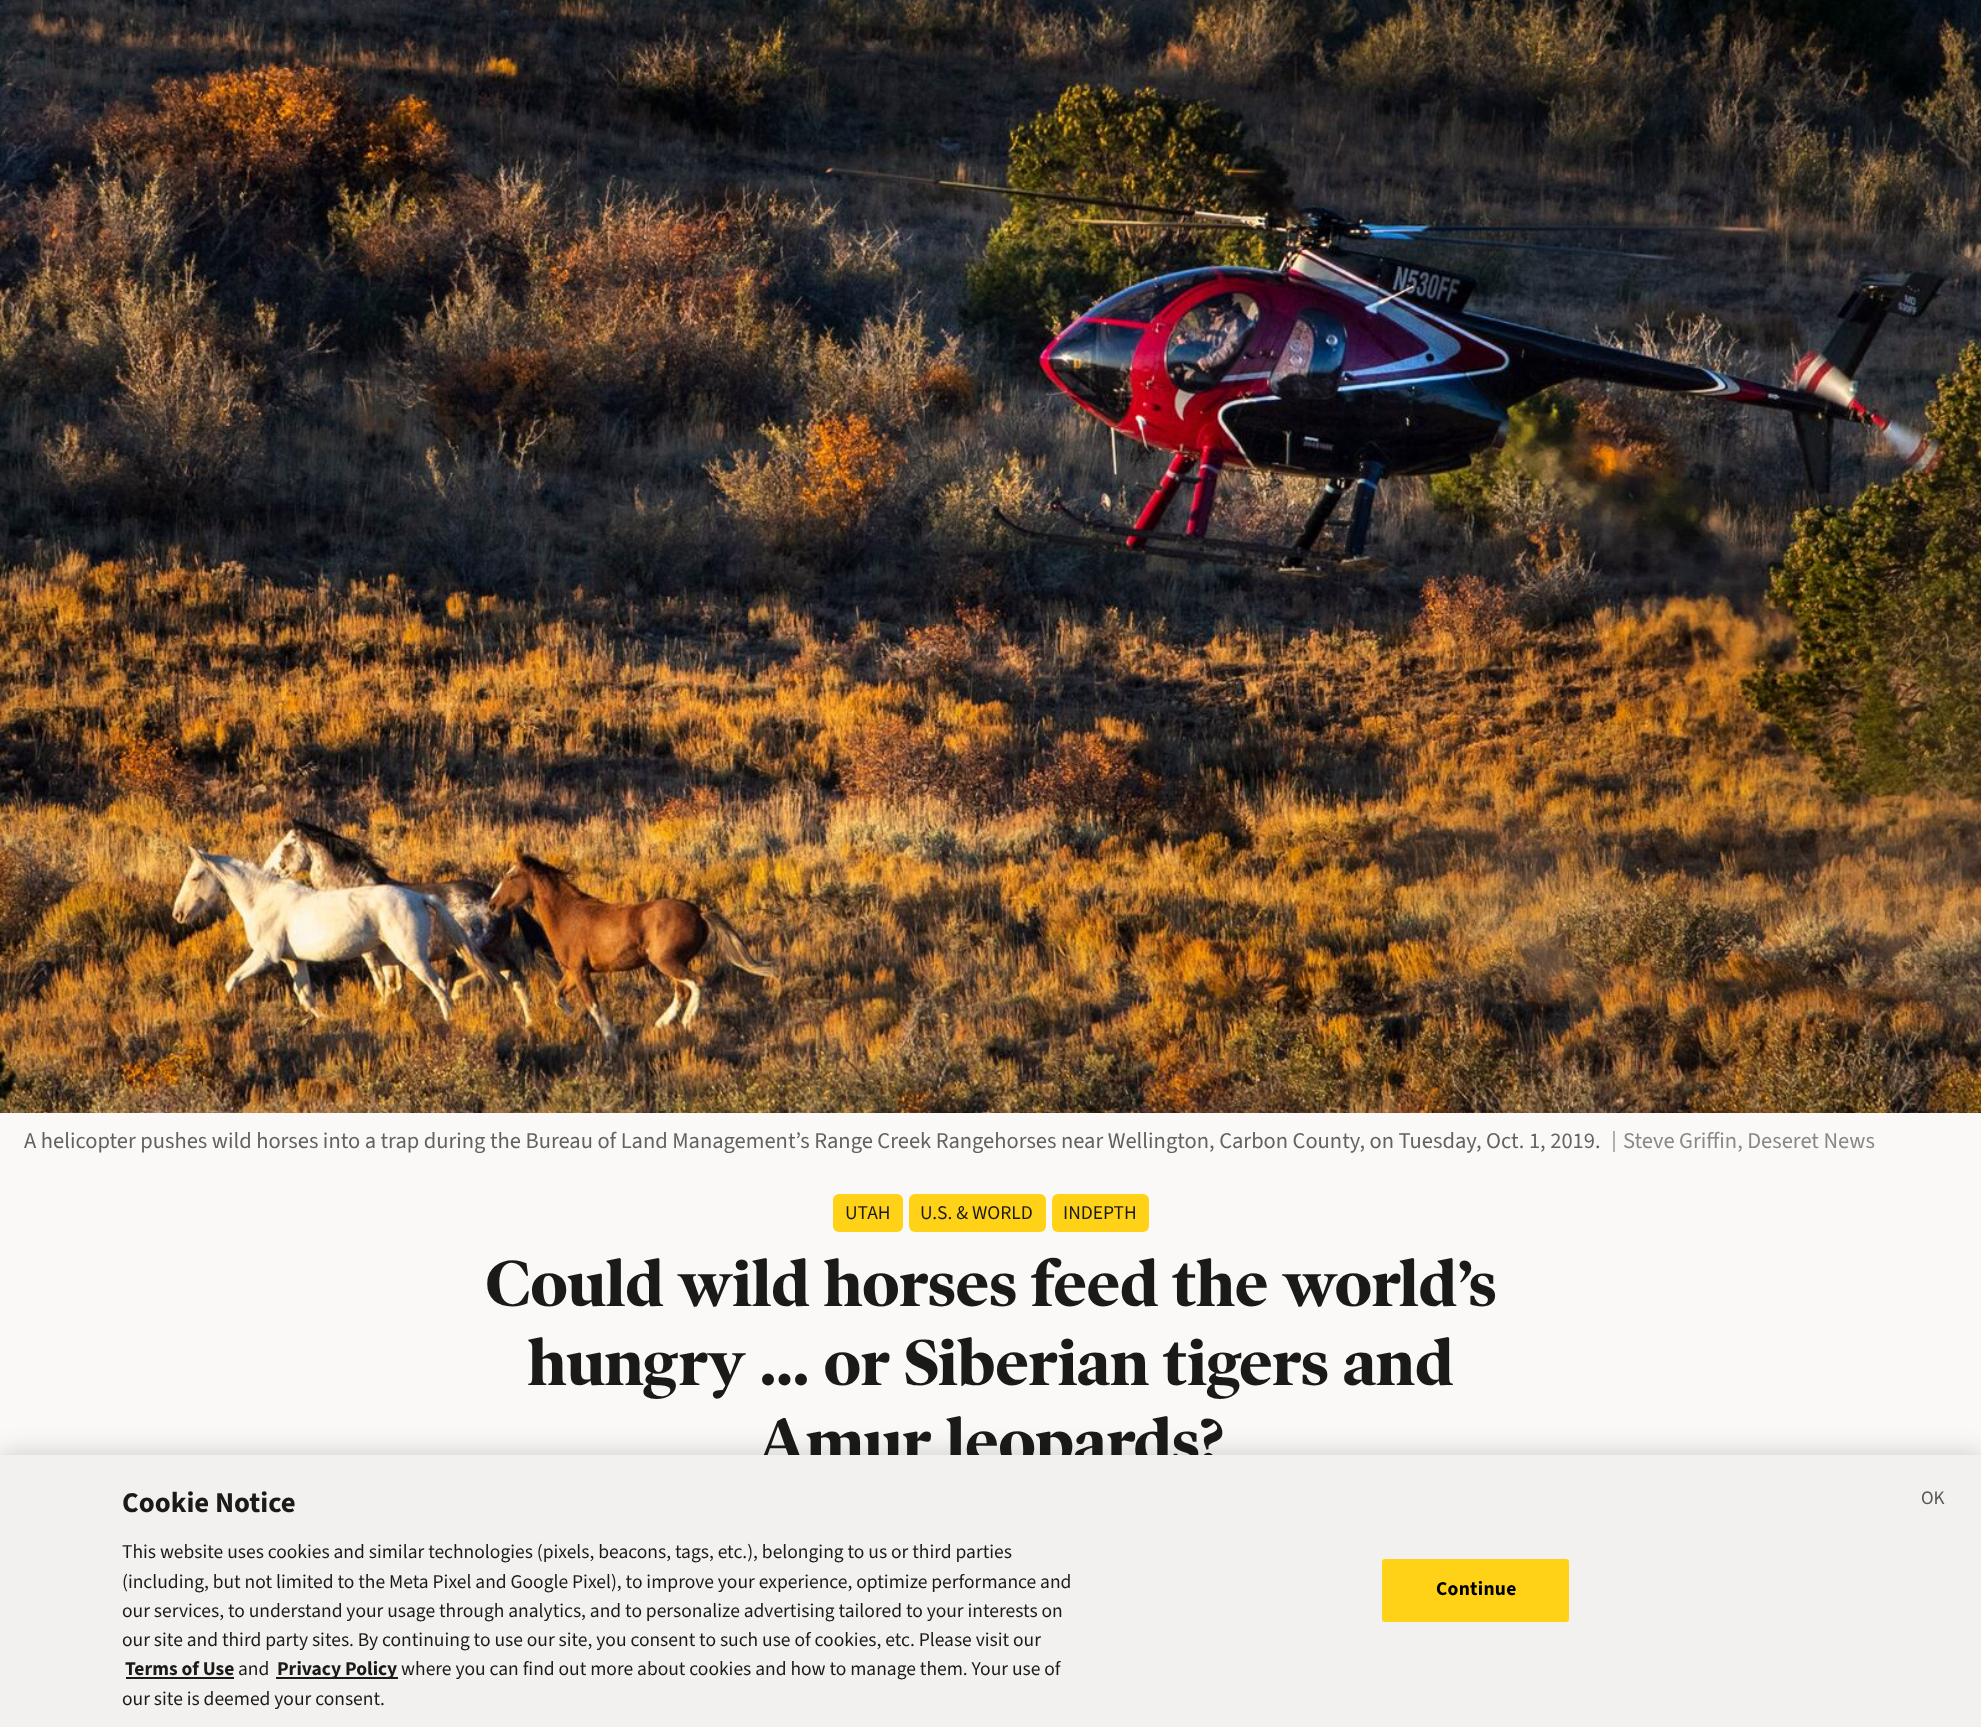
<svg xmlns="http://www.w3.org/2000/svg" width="1981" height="1727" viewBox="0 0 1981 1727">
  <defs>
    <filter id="blur1" x="-50%" y="-200%" width="200%" height="500%"><feGaussianBlur stdDeviation="13.5"/></filter>
  </defs>
  <rect width="100%" height="100%" fill="#faf9f7"/>
  <image x="0" y="0" width="1981" height="1113" href="img1.png"/>
  <text x="24" y="1148" font-family="'Source Sans 3'" font-size="22.5" fill="#626262">A helicopter pushes wild horses into a trap during the Bureau of Land Management’s Range Creek Rangehorses near Wellington, Carbon County, on Tuesday, Oct. 1, 2019.</text>
  <rect x="1613" y="1131" width="2" height="21" fill="#afafae"/>
  <text x="1623" y="1148" font-family="'Source Sans 3'" font-size="22.5" fill="#888887">Steve Griffin, Deseret News</text>
  <rect x="833" y="1194" width="70" height="38" rx="6" fill="#ffd217"/>
  <text x="845" y="1219" font-family="'Source Sans 3'" font-size="19.5" fill="#1a1a19">UTAH</text>
  <rect x="909" y="1194" width="137" height="38" rx="6" fill="#ffd217"/>
  <text x="920" y="1219" font-family="'Source Sans 3'" font-size="19.5" fill="#1a1a19">U.S. &amp; WORLD</text>
  <rect x="1052" y="1194" width="97" height="38" rx="6" fill="#ffd217"/>
  <text x="1063" y="1219" font-family="'Source Sans 3'" font-size="19.5" fill="#1a1a19">INDEPTH</text>
  <text x="485" y="1306" font-family="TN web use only" font-size="66" font-weight="bold" fill="#1a1a19">Could wild horses feed the world’s</text>
  <text x="528" y="1385" font-family="TN web use only" font-size="66" font-weight="bold" fill="#1a1a19">hungry ... or Siberian tigers and</text>
  <text x="757" y="1464" font-family="TN web use only" font-size="66" font-weight="bold" fill="#1a1a19">Amur leopards?</text>
  <rect x="0" y="1455" width="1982" height="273" fill="#000000" fill-opacity="0.2" filter="url(#blur1)"/>
  <rect x="0" y="1455" width="1981" height="272" fill="#f3f1f0"/>
  <text x="122" y="1512" font-family="'Source Sans 3'" font-size="28.75" font-weight="bold" fill="#1a1a19">Cookie Notice</text>
  <text x="122" y="1558" font-family="'Source Sans 3'" font-size="19.5" fill="#1a1a19">This website uses cookies and similar technologies (pixels, beacons, tags, etc.), belonging to us or third parties</text>
  <text x="122" y="1588" font-family="'Source Sans 3'" font-size="19.5" fill="#1a1a19">(including, but not limited to the Meta Pixel and Google Pixel), to improve your experience, optimize performance and</text>
  <text x="122" y="1617" font-family="'Source Sans 3'" font-size="19.5" fill="#1a1a19">our services, to understand your usage through analytics, and to personalize advertising tailored to your interests on</text>
  <text x="122" y="1646" font-family="'Source Sans 3'" font-size="19.5" fill="#1a1a19">our site and third party sites. By continuing to use our site, you consent to such use of cookies, etc. Please visit our</text>
  <text x="125" y="1675" font-family="'Source Sans 3'" font-size="19.5" font-weight="bold" fill="#1a1a19">Terms of Use</text>
  <rect x="126" y="1677" width="108" height="2" fill="#1a1a19"/>
  <text x="238" y="1675" font-family="'Source Sans 3'" font-size="19.5" fill="#1a1a19">and</text>
  <rect x="276" y="1677" width="122" height="2" fill="#1a1a19"/>
  <text x="277" y="1675" font-family="'Source Sans 3'" font-size="19.5" font-weight="bold" fill="#1a1a19">Privacy Policy</text>
  <text x="401" y="1675" font-family="'Source Sans 3'" font-size="19.5" fill="#1a1a19">where you can find out more about cookies and how to manage them. Your use of</text>
  <text x="122" y="1705" font-family="'Source Sans 3'" font-size="19.5" fill="#1a1a19">our site is deemed your consent.</text>
  <rect x="1383" y="1560" width="185" height="61" rx="2" fill="#ffd217" stroke="#ffd217" stroke-width="2"/>
  <text x="1436" y="1595" font-family="'Source Sans 3'" font-size="19.5" font-weight="bold" letter-spacing="0.25" fill="#000000">Continue</text>
  <text x="1921" y="1504" font-family="'Source Sans 3'" font-size="19" fill="#555555">OK</text>
</svg>
